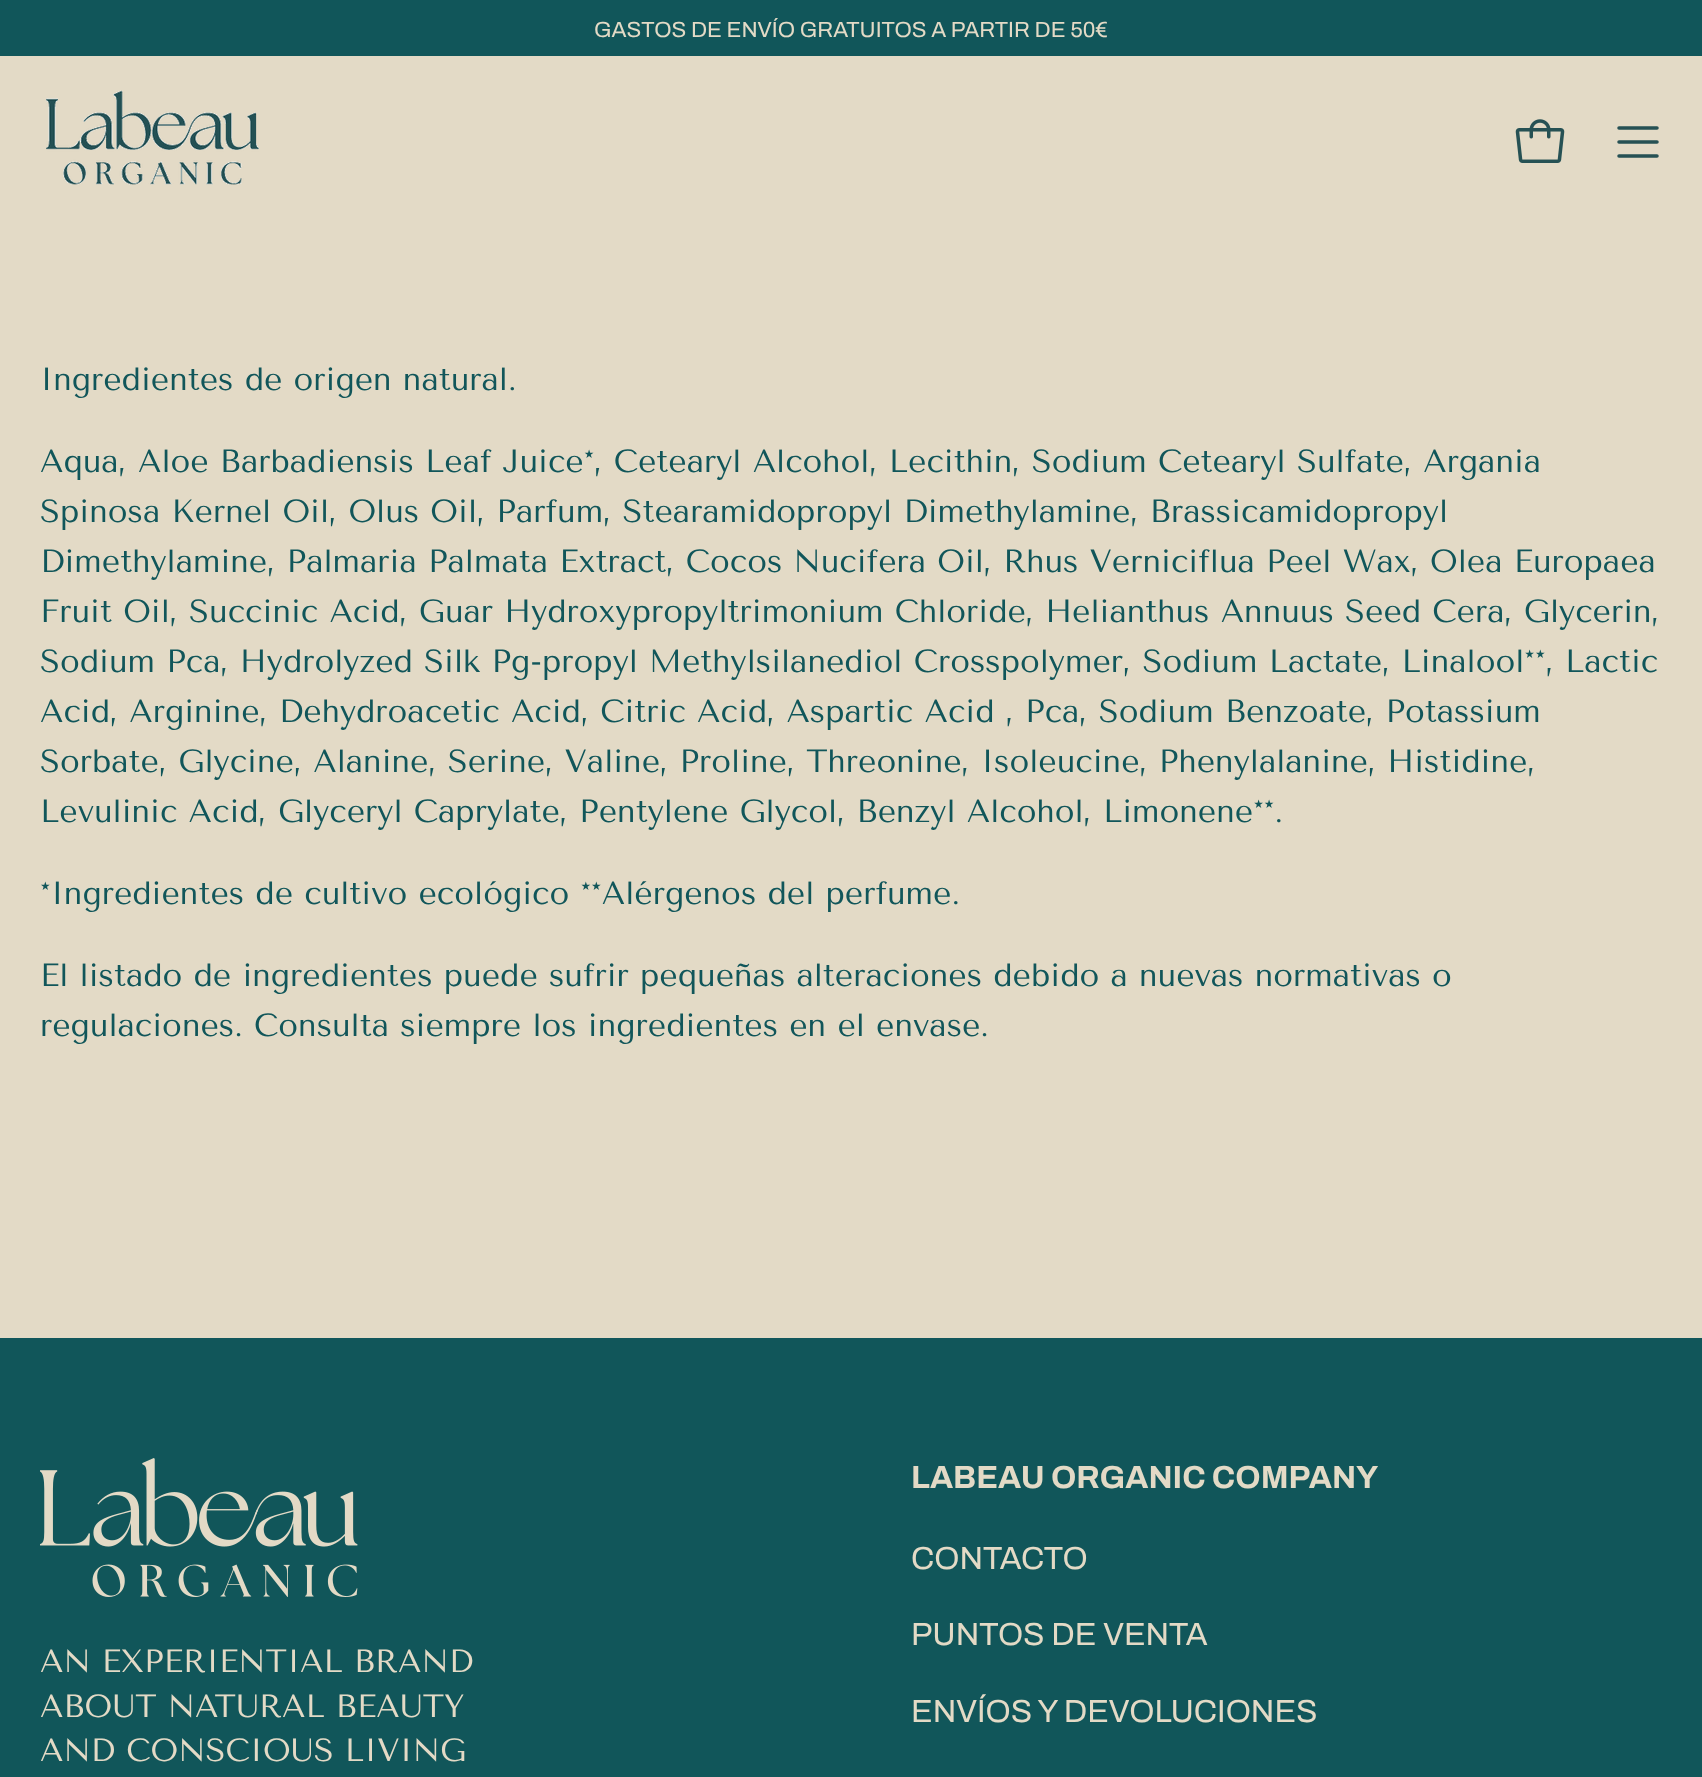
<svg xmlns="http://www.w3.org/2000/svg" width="1702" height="1777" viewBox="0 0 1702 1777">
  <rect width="100%" height="100%" fill="#e3dac6"/>
  <rect x="0" y="0" width="1702" height="56" fill="#11565a"/>
  <text x="594" y="37" font-family="Archivo" font-size="22" fill="#e3dac6">GASTOS DE ENVÍO GRATUITOS A PARTIR DE 50€</text>
  <image x="46" y="90" width="214" height="95" href="img1.png"/>
  <image x="1515" y="119" width="50" height="44" href="img2.png"/>
  <path d="M1619 142H1657M1619 128H1657M1619 156H1657" fill="none" stroke="#265154" stroke-width="3.5" stroke-linecap="round" stroke-linejoin="round"/>
  <text x="40" y="390" font-family="Tenor Sans" font-size="32" fill="#11565a">Ingredientes de origen natural.</text>
  <text x="40" y="472" font-family="Tenor Sans" font-size="32" fill="#11565a">Aqua, Aloe Barbadiensis Leaf Juice*, Cetearyl Alcohol, Lecithin, Sodium Cetearyl Sulfate, Argania</text>
  <text x="40" y="522" font-family="Tenor Sans" font-size="32" fill="#11565a">Spinosa Kernel Oil, Olus Oil, Parfum, Stearamidopropyl Dimethylamine, Brassicamidopropyl</text>
  <text x="40" y="572" font-family="Tenor Sans" font-size="32" fill="#11565a">Dimethylamine, Palmaria Palmata Extract, Cocos Nucifera Oil, Rhus Verniciflua Peel Wax, Olea Europaea</text>
  <text x="40" y="622" font-family="Tenor Sans" font-size="32" fill="#11565a">Fruit Oil, Succinic Acid, Guar Hydroxypropyltrimonium Chloride, Helianthus Annuus Seed Cera, Glycerin,</text>
  <text x="40" y="672" font-family="Tenor Sans" font-size="32" fill="#11565a">Sodium Pca, Hydrolyzed Silk Pg-propyl Methylsilanediol Crosspolymer, Sodium Lactate, Linalool**, Lactic</text>
  <text x="40" y="722" font-family="Tenor Sans" font-size="32" fill="#11565a">Acid, Arginine, Dehydroacetic Acid, Citric Acid, Aspartic Acid , Pca, Sodium Benzoate, Potassium</text>
  <text x="40" y="772" font-family="Tenor Sans" font-size="32" fill="#11565a">Sorbate, Glycine, Alanine, Serine, Valine, Proline, Threonine, Isoleucine, Phenylalanine, Histidine,</text>
  <text x="40" y="822" font-family="Tenor Sans" font-size="32" fill="#11565a">Levulinic Acid, Glyceryl Caprylate, Pentylene Glycol, Benzyl Alcohol, Limonene**.</text>
  <text x="40" y="904" font-family="Tenor Sans" font-size="32" fill="#11565a">*Ingredientes de cultivo ecológico **Alérgenos del perfume.</text>
  <text x="40" y="986" font-family="Tenor Sans" font-size="32" fill="#11565a">El listado de ingredientes puede sufrir pequeñas alteraciones debido a nuevas normativas o</text>
  <text x="40" y="1036" font-family="Tenor Sans" font-size="32" fill="#11565a">regulaciones. Consulta siempre los ingredientes en el envase.</text>
  <rect x="0" y="1338" width="1702" height="439" fill="#11565a"/>
  <image x="40" y="1458" width="318" height="139" href="img3.png"/>
  <text x="40" y="1672" font-family="Tenor Sans" font-size="32" fill="#e3dac6">AN EXPERIENTIAL BRAND</text>
  <text x="40" y="1717" font-family="Tenor Sans" font-size="32" fill="#e3dac6">ABOUT NATURAL BEAUTY</text>
  <text x="40" y="1761" font-family="Tenor Sans" font-size="32" fill="#e3dac6">AND CONSCIOUS LIVING</text>
  <text x="911" y="1488" font-family="Archivo" font-size="32" font-weight="bold" fill="#e3dac6">LABEAU ORGANIC COMPANY</text>
  <text x="911" y="1569" font-family="Archivo" font-size="32" fill="#e3dac6">CONTACTO</text>
  <text x="911" y="1645" font-family="Archivo" font-size="32" fill="#e3dac6">PUNTOS DE VENTA</text>
  <text x="911" y="1722" font-family="Archivo" font-size="32" fill="#e3dac6">ENVÍOS Y DEVOLUCIONES</text>
</svg>
